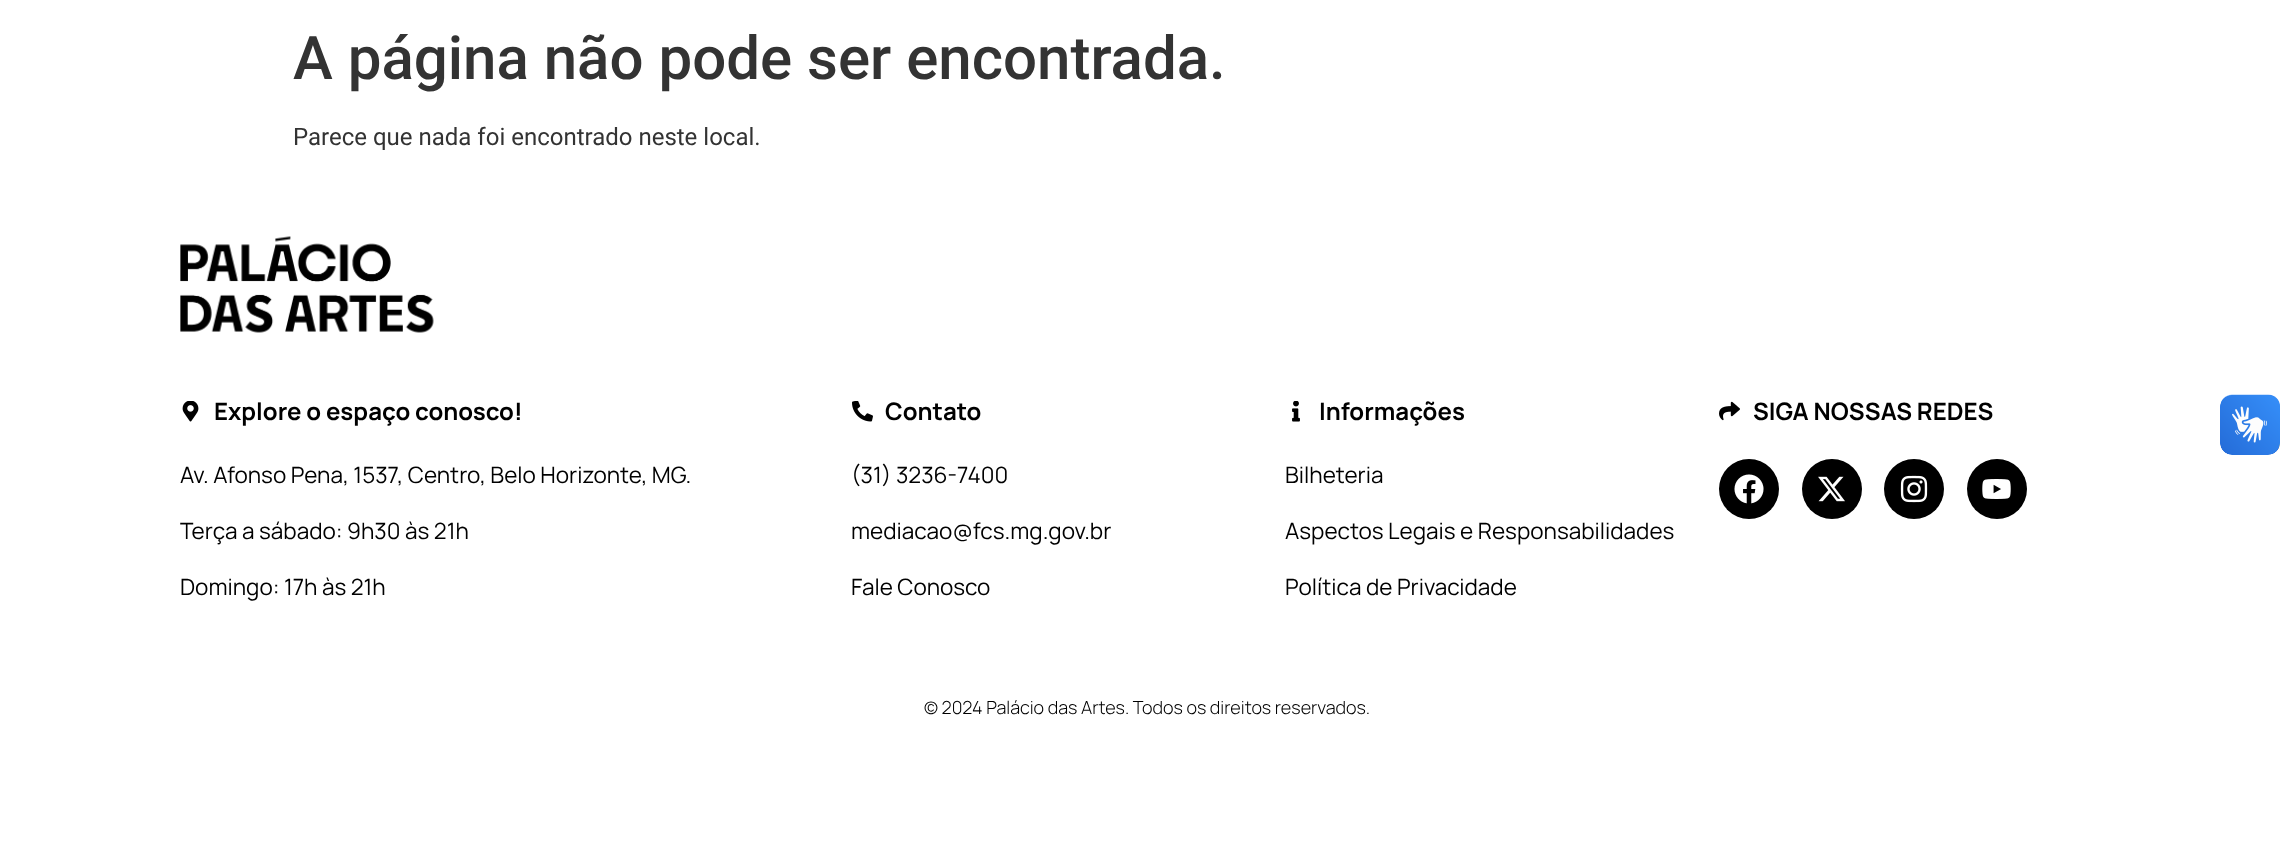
<svg xmlns="http://www.w3.org/2000/svg" width="2294" height="848" viewBox="0 0 2294 848">
  <rect width="100%" height="100%" fill="#ffffff"/>
  <text x="293" y="79" font-family="Roboto" font-size="60" font-weight="500" fill="#333333">A página não pode ser encontrada.</text>
  <text x="293" y="145" font-family="Roboto" font-size="24" fill="#333333">Parece que nada foi encontrado neste local.</text>
  <image x="180" y="236" width="254" height="97" href="img1.png"/>
  <image x="182" y="401" width="17" height="21" href="img2.png"/>
  <text x="214" y="420" font-family="Manrope" font-size="24" font-weight="bold" fill="#000000">Explore o espaço conosco!</text>
  <text x="180" y="483" font-family="Manrope" font-size="22.5" fill="#000000">Av. Afonso Pena, 1537, Centro, Belo Horizonte, MG.</text>
  <text x="180" y="539" font-family="Manrope" font-size="22.5" fill="#000000">Terça a sábado: 9h30 às 21h</text>
  <text x="180" y="595" font-family="Manrope" font-size="22.5" fill="#000000">Domingo: 17h às 21h</text>
  <image x="852" y="401" width="21" height="21" href="img3.png"/>
  <text x="885" y="420" font-family="Manrope" font-size="24" font-weight="bold" fill="#000000">Contato</text>
  <text x="851" y="483" font-family="Manrope" font-size="22.5" fill="#000000">(31) 3236-7400</text>
  <text x="851" y="539" font-family="Manrope" font-size="22.5" fill="#000000">mediacao@fcs.mg.gov.br</text>
  <text x="851" y="595" font-family="Manrope" font-size="22.5" fill="#000000">Fale Conosco</text>
  <image x="1292" y="401" width="8" height="21" href="img4.png"/>
  <text x="1319" y="420" font-family="Manrope" font-size="24" font-weight="bold" fill="#000000">Informações</text>
  <text x="1285" y="483" font-family="Manrope" font-size="22.5" fill="#000000">Bilheteria</text>
  <text x="1285" y="539" font-family="Manrope" font-size="22.5" fill="#000000">Aspectos Legais e Responsabilidades</text>
  <text x="1285" y="595" font-family="Manrope" font-size="22.5" fill="#000000">Política de Privacidade</text>
  <image x="1719" y="401" width="21" height="20" href="img5.png"/>
  <text x="1753" y="420" font-family="Manrope" font-size="24" font-weight="bold" fill="#000000">SIGA NOSSAS REDES</text>
  <circle cx="1749" cy="489" r="30" fill="#000000"/>
  <image x="1734" y="474" width="30" height="30" href="img6.png"/>
  <circle cx="1832" cy="489" r="30" fill="#000000"/>
  <image x="1818" y="476" width="27" height="26" href="img7.png"/>
  <circle cx="1914" cy="489" r="30" fill="#000000"/>
  <image x="1900" y="475" width="28" height="28" href="img8.png"/>
  <circle cx="1997" cy="489" r="30" fill="#000000"/>
  <image x="1982" y="479" width="29" height="20" href="img9.png"/>
  <text x="924" y="714" font-family="Manrope" font-size="18" font-weight="300" fill="#000000">© 2024 Palácio das Artes. Todos os direitos reservados.</text>
  <image x="2220" y="394" width="60" height="61" href="img10.png"/>
  <image x="2220" y="395" width="60" height="60" href="img11.png"/>
</svg>
